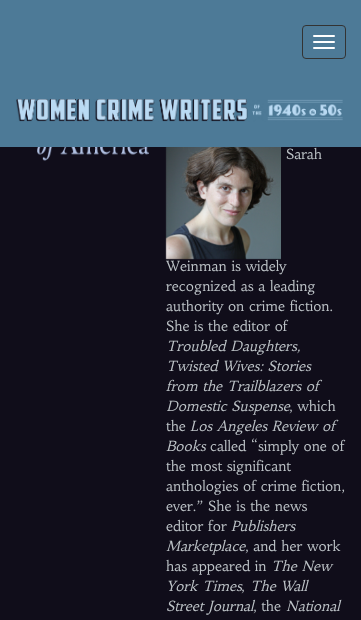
<svg xmlns="http://www.w3.org/2000/svg" width="361" height="620" viewBox="0 0 361 620">
  <rect width="100%" height="100%" fill="#100d1a"/>
  <rect x="0" y="0" width="361" height="147" fill="#4d7a97"/>
  <rect x="302.5" y="25.5" width="43" height="33" rx="3.5" fill="none" stroke="#333333"/>
  <rect x="313" y="35" width="22" height="2" rx="1" fill="#ffffff"/>
  <rect x="313" y="41" width="22" height="2" rx="1" fill="#ffffff"/>
  <rect x="313" y="47" width="22" height="2" rx="1" fill="#ffffff"/>
  <image x="16" y="99" width="327" height="23" href="img1.png"/>
  <image x="37" y="147" width="112" height="14" href="img2.png"/>
  <image x="165" y="147" width="116" height="113" href="img3.png"/>
  <text x="286" y="159" font-family="Habibi" font-size="14" fill="#bdc3c7">Sarah</text>
  <text x="166" y="271" font-family="Habibi" font-size="14" fill="#bdc3c7">Weinman is widely</text>
  <text x="166" y="291" font-family="Habibi" font-size="14" fill="#bdc3c7">recognized as a leading</text>
  <text x="166" y="311" font-family="Habibi" font-size="14" fill="#bdc3c7">authority on crime fiction.</text>
  <text x="166" y="331" font-family="Habibi" font-size="14" fill="#bdc3c7">She is the editor of</text>
  <text x="166" y="351" font-family="Habibi" font-size="14" font-style="italic" fill="#bdc3c7">Troubled Daughters,</text>
  <text x="166" y="371" font-family="Habibi" font-size="14" font-style="italic" fill="#bdc3c7">Twisted Wives: Stories</text>
  <text x="166" y="391" font-family="Habibi" font-size="14" font-style="italic" fill="#bdc3c7">from the Trailblazers of</text>
  <text x="166" y="411" font-family="Habibi" font-size="14" font-style="italic" fill="#bdc3c7">Domestic Suspense</text>
  <text x="289" y="411" font-family="Habibi" font-size="14" fill="#bdc3c7">, which</text>
  <text x="166" y="431" font-family="Habibi" font-size="14" fill="#bdc3c7">the</text>
  <text x="190" y="431" font-family="Habibi" font-size="14" font-style="italic" fill="#bdc3c7">Los Angeles Review of</text>
  <text x="166" y="451" font-family="Habibi" font-size="14" font-style="italic" fill="#bdc3c7">Books</text>
  <text x="210" y="451" font-family="Habibi" font-size="14" fill="#bdc3c7">called “simply one of</text>
  <text x="166" y="471" font-family="Habibi" font-size="14" fill="#bdc3c7">the most significant</text>
  <text x="166" y="491" font-family="Habibi" font-size="14" fill="#bdc3c7">anthologies of crime fiction,</text>
  <text x="166" y="511" font-family="Habibi" font-size="14" fill="#bdc3c7">ever.” She is the news</text>
  <text x="166" y="531" font-family="Habibi" font-size="14" fill="#bdc3c7">editor for</text>
  <text x="231" y="531" font-family="Habibi" font-size="14" font-style="italic" fill="#bdc3c7">Publishers</text>
  <text x="166" y="551" font-family="Habibi" font-size="14" font-style="italic" fill="#bdc3c7">Marketplace</text>
  <text x="245" y="551" font-family="Habibi" font-size="14" fill="#bdc3c7">, and her work</text>
  <text x="166" y="571" font-family="Habibi" font-size="14" fill="#bdc3c7">has appeared in</text>
  <text x="271" y="571" font-family="Habibi" font-size="14" font-style="italic" fill="#bdc3c7">The New</text>
  <text x="166" y="591" font-family="Habibi" font-size="14" font-style="italic" fill="#bdc3c7">York Times</text>
  <text x="241" y="591" font-family="Habibi" font-size="14" fill="#bdc3c7">,</text>
  <text x="250" y="591" font-family="Habibi" font-size="14" font-style="italic" fill="#bdc3c7">The Wall</text>
  <text x="166" y="611" font-family="Habibi" font-size="14" font-style="italic" fill="#bdc3c7">Street Journal</text>
  <text x="253" y="611" font-family="Habibi" font-size="14" fill="#bdc3c7">, the</text>
  <text x="286" y="611" font-family="Habibi" font-size="14" font-style="italic" fill="#bdc3c7">National</text>
</svg>
